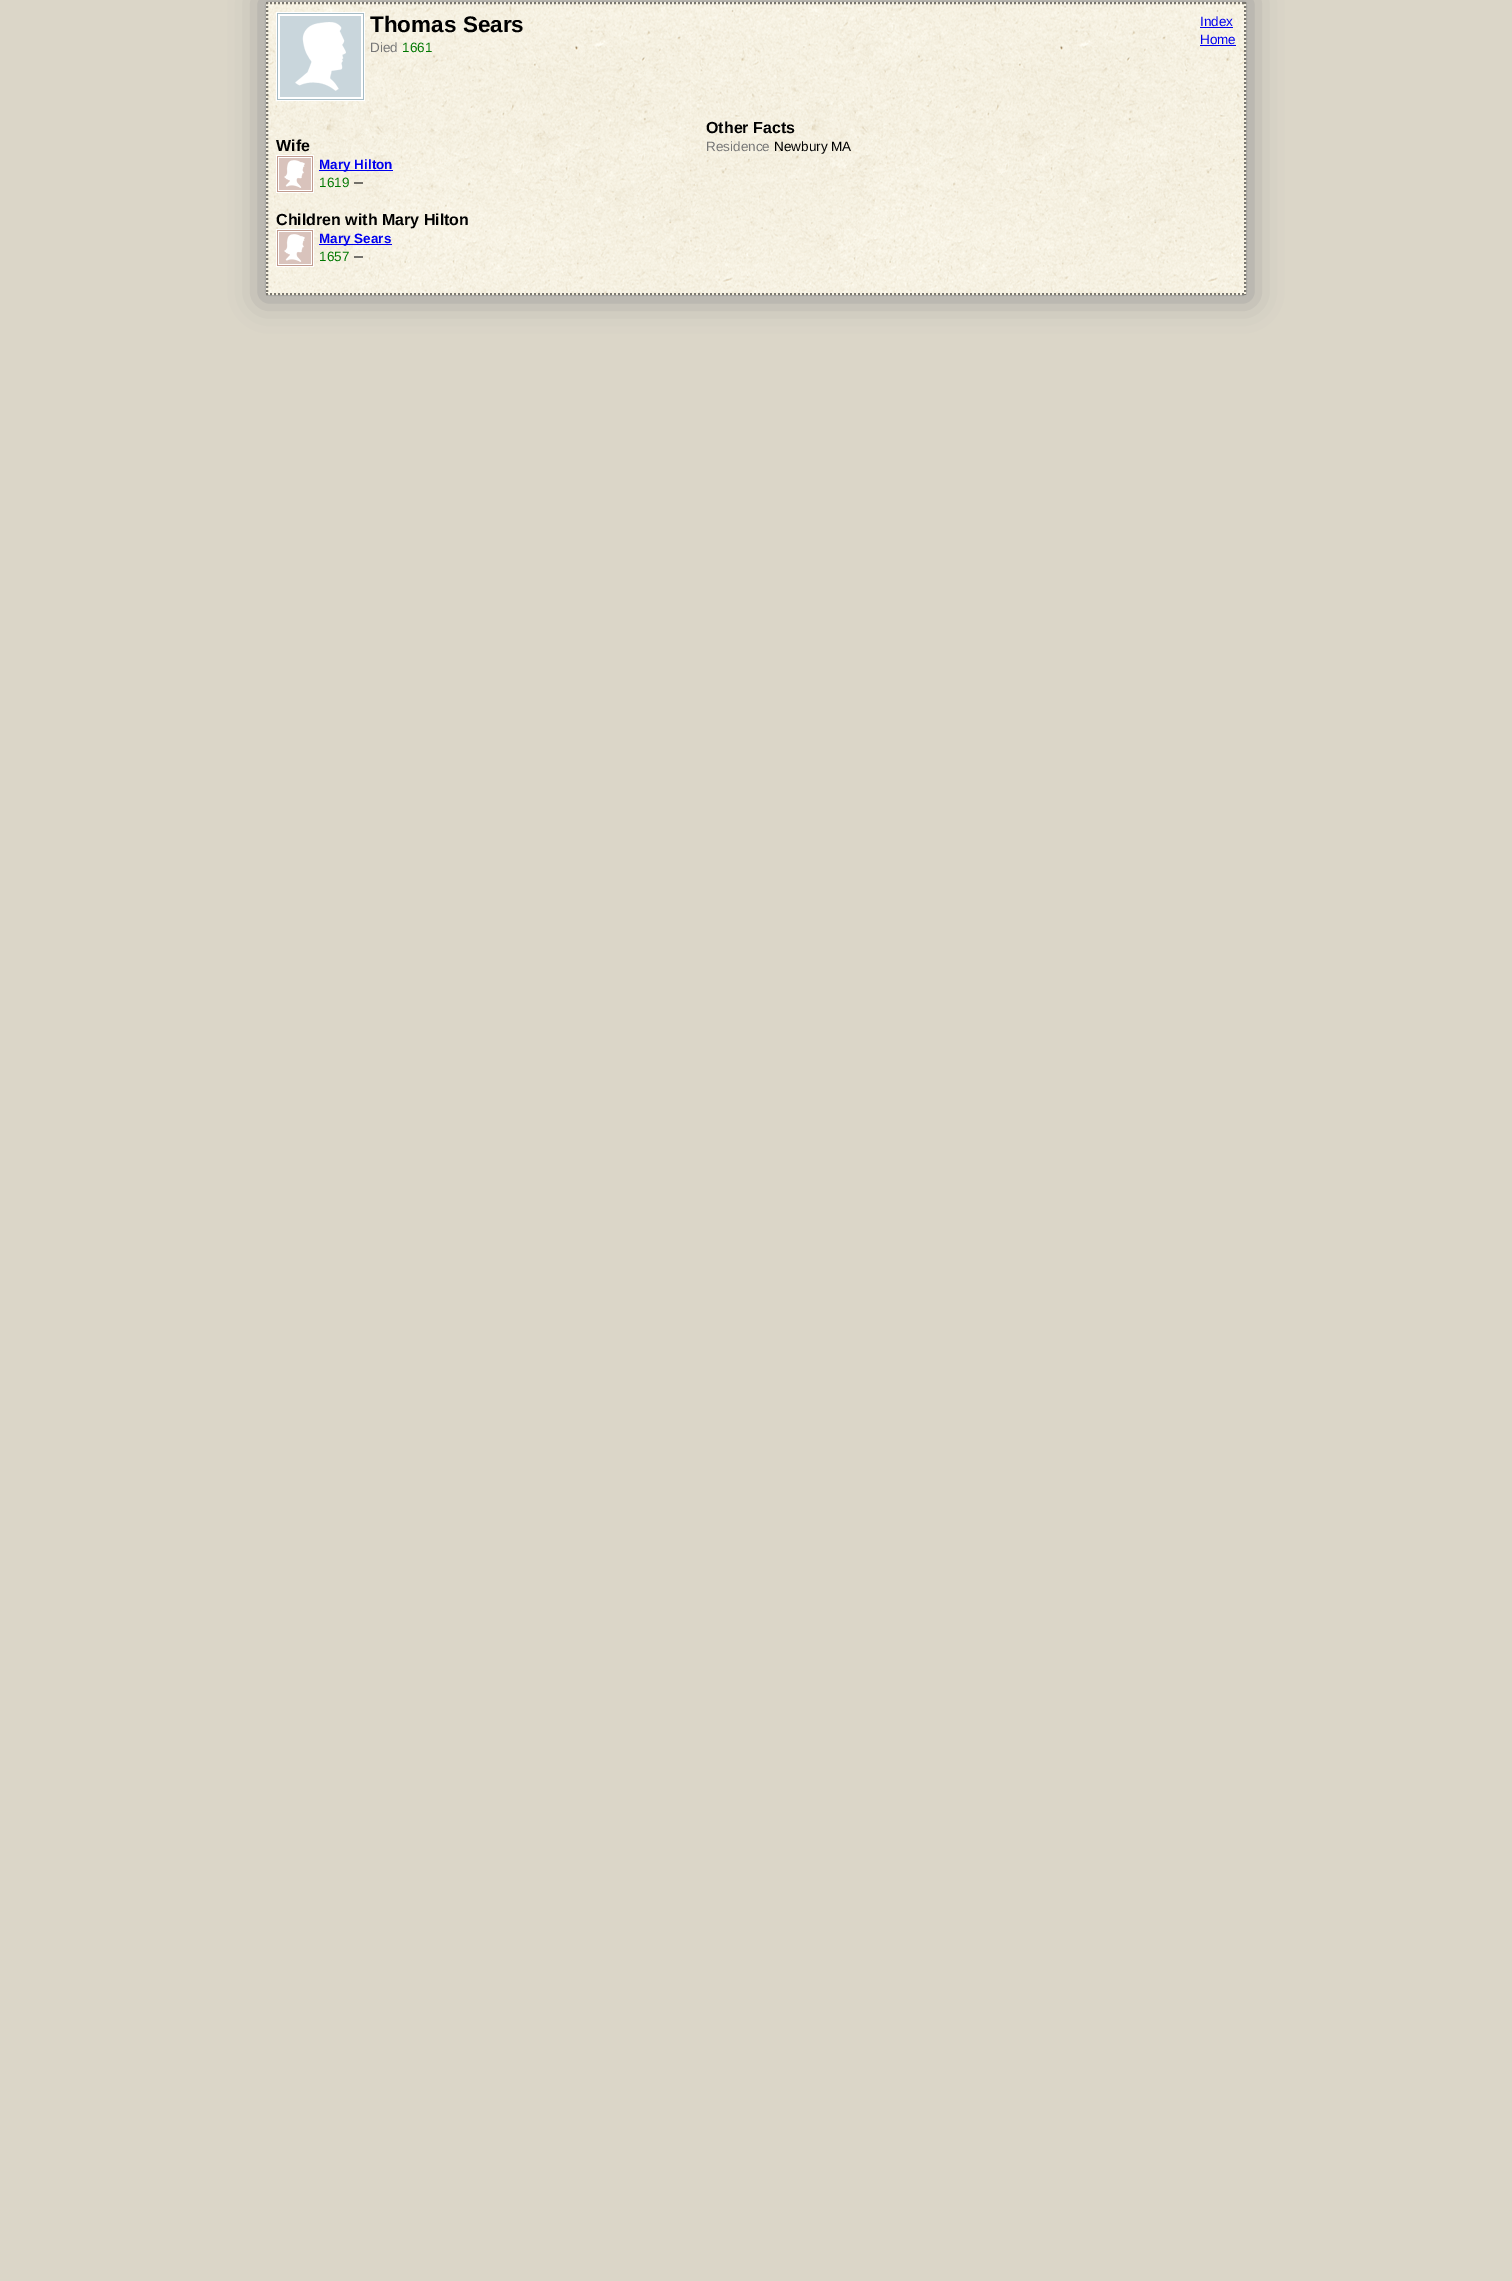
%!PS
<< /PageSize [1512 2281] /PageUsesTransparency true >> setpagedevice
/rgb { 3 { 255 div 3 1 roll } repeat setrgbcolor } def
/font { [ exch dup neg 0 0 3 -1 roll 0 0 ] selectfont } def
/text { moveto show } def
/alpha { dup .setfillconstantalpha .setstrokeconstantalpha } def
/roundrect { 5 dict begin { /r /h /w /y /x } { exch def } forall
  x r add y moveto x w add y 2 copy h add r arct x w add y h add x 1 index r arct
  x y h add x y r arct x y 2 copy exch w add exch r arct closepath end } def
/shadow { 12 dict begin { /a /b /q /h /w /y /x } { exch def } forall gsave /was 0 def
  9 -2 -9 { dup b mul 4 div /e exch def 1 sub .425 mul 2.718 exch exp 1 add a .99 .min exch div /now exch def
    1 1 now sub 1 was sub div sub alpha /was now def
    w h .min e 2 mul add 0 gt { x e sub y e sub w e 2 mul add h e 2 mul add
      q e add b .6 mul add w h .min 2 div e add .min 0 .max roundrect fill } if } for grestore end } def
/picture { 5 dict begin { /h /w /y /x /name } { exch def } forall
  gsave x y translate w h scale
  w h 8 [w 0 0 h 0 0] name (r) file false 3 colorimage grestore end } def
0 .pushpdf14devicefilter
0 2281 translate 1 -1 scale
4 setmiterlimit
219 214 200 rgb
0 0 1512 2281 rectfill
153 153 153 rgb
261 -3 990 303 0 15 1 shadow
(img_01.rgb) 266 2 980 293 picture
122 119 111 rgb
2 setlinewidth
[2 2] 0 setdash
266 3 moveto 980 0 rlineto stroke
1245 2 moveto 0 293 rlineto stroke
266 294 moveto 980 0 rlineto stroke
267 2 moveto 0 293 rlineto stroke
(img_02.rgb) 276 12 89 89 picture
0 0 238 rgb
1200 27 33 1 rectfill
1200 45 36 1 rectfill
(img_03.rgb) 276 155 38 38 picture
319 170 74 1 rectfill
(img_03.rgb) 276 229 38 38 picture
319 244 73 1 rectfill
/LiberationSans-Bold 22.5 font
0 0 0 rgb
(Thomas Sears) 370 32 text
/LiberationSans-Regular 13.5 font
119 119 119 rgb
(Died) 370 52 text
0 119 0 rgb
(1661) 402 52 text
0 0 238 rgb
(Index) 1200 26 text
(Home) 1200 44 text
/LiberationSans-Bold 16 font
0 0 0 rgb
(Wife) 276 151 text
/LiberationSans-Bold 13.5 font
0 0 238 rgb
(Mary Hilton) 319 169 text
/LiberationSans-Regular 13.5 font
0 119 0 rgb
(1619) 319 187 text
/LiberationSans-Regular 16 font
0 0 0 rgb
(–) 354 187 text
/LiberationSans-Bold 16 font
(Children with Mary Hilton) 276 225 text
/LiberationSans-Bold 13.5 font
0 0 238 rgb
(Mary Sears) 319 243 text
/LiberationSans-Regular 13.5 font
0 119 0 rgb
(1657) 319 261 text
/LiberationSans-Regular 16 font
0 0 0 rgb
(–) 354 261 text
/LiberationSans-Bold 16 font
(Other Facts) 706 133 text
/LiberationSans-Regular 13.5 font
119 119 119 rgb
(Residence) 706 151 text
0 0 0 rgb
(Newbury MA) 774 151 text
.poppdf14devicefilter showpage
